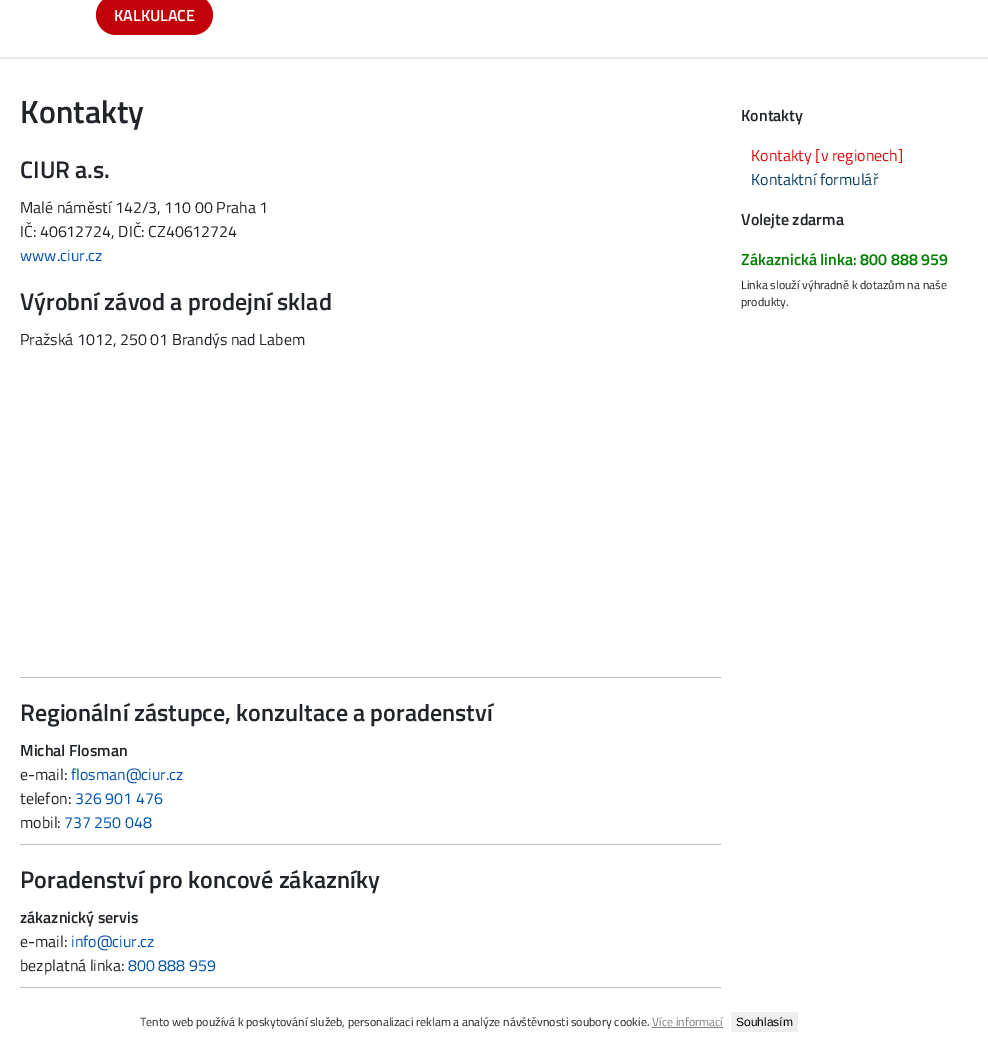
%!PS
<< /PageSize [988 1037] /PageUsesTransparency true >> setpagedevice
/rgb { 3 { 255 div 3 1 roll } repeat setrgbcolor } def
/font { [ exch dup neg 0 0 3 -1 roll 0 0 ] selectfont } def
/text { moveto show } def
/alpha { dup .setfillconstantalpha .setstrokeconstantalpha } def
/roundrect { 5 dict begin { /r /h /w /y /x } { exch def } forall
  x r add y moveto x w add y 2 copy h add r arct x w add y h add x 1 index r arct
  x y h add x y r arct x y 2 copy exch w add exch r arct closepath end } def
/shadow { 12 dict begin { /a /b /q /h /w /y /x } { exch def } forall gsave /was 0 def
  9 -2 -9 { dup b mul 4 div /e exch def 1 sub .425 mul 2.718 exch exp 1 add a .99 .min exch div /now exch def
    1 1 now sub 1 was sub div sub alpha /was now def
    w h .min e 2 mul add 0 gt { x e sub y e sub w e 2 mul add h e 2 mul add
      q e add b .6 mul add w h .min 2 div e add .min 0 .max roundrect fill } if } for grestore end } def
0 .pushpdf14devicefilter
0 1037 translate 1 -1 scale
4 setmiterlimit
255 255 255 rgb
0 0 988 1037 rectfill
gsave
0 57 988 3 rectclip
0 0 0 rgb
0 -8 988 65 0 2.5 0.2 shadow
grestore
193 0 8 rgb
96 -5 117 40 20 roundrect fill
190 190 190 rgb
20 677 701 1 rectfill
20 844 701 1 rectfill
20 987 701 1 rectfill
128 128 128 rgb
652 1027 71 1 rectfill
239 239 239 rgb
731 1012 67 20 rectfill
/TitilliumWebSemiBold-SemiBold 16 font
255 255 255 rgb
(KALKULACE) 114 21 text
/TitilliumWebSemiBold-SemiBold 32 font
33 37 41 rgb
(Kontakty) 20 123 text
/TitilliumWebSemiBold-SemiBold 24 font
(CIUR a.s.) 20 178 text
/TitilliumWeb-Regular 16 font
(Malé náměstí 142/3, 110 00 Praha 1) 20 213 text
(IČ: 40612724, DIČ: CZ40612724) 20 237 text
0 82 175 rgb
(www.ciur.cz) 20 261 text
/TitilliumWebSemiBold-SemiBold 24 font
33 37 41 rgb
(Výrobní závod a prodejní sklad) 20 310 text
/TitilliumWeb-Regular 16 font
(Pražská 1012, 250 01 Brandýs nad Labem) 20 345 text
/TitilliumWebSemiBold-SemiBold 24 font
(Regionální zástupce, konzultace a poradenství) 20 721 text
/TitilliumWebSemiBold-SemiBold 16 font
(Michal Flosman) 20 756 text
/TitilliumWeb-Regular 16 font
(e-mail:) 20 780 text
0 82 175 rgb
(flosman@ciur.cz) 71 780 text
33 37 41 rgb
(telefon:) 20 804 text
0 82 175 rgb
(326 901 476) 75 804 text
33 37 41 rgb
(mobil:) 20 828 text
0 82 175 rgb
(737 250 048) 64 828 text
/TitilliumWebSemiBold-SemiBold 24 font
33 37 41 rgb
(Poradenství pro koncové zákazníky) 20 888 text
/TitilliumWebSemiBold-SemiBold 16 font
(zákaznický servis) 20 923 text
/TitilliumWeb-Regular 16 font
(e-mail:) 20 947 text
0 82 175 rgb
(info@ciur.cz) 71 947 text
33 37 41 rgb
(bezplatná linka:) 20 971 text
0 82 175 rgb
(800 888 959) 128 971 text
/TitilliumWebSemiBold-SemiBold 16 font
33 37 41 rgb
(Kontakty) 741 121 text
/TitilliumWeb-Regular 16 font
218 13 13 rgb
(Kontakty [v regionech]) 751 161 text
10 63 100 rgb
(Kontaktní formulář) 751 185 text
/TitilliumWebSemiBold-SemiBold 16 font
33 37 41 rgb
(Volejte zdarma) 741 225 text
0 128 0 rgb
(Zákaznická linka: 800 888 959) 741 265 text
/TitilliumWeb-Regular 12 font
33 37 41 rgb
(Linka slouží výhradně k dotazům na naše) 741 289 text
(produkty.) 741 306 text
(Tento web používá k poskytování služeb, personalizaci reklam a analýze návštěvnosti soubory cookie.) 140 1026 text
128 128 128 rgb
(Více informací) 652 1026 text
/LiberationSans-Regular 12 font
0 0 0 rgb
(Souhlasím) 736 1026 text
.poppdf14devicefilter showpage
